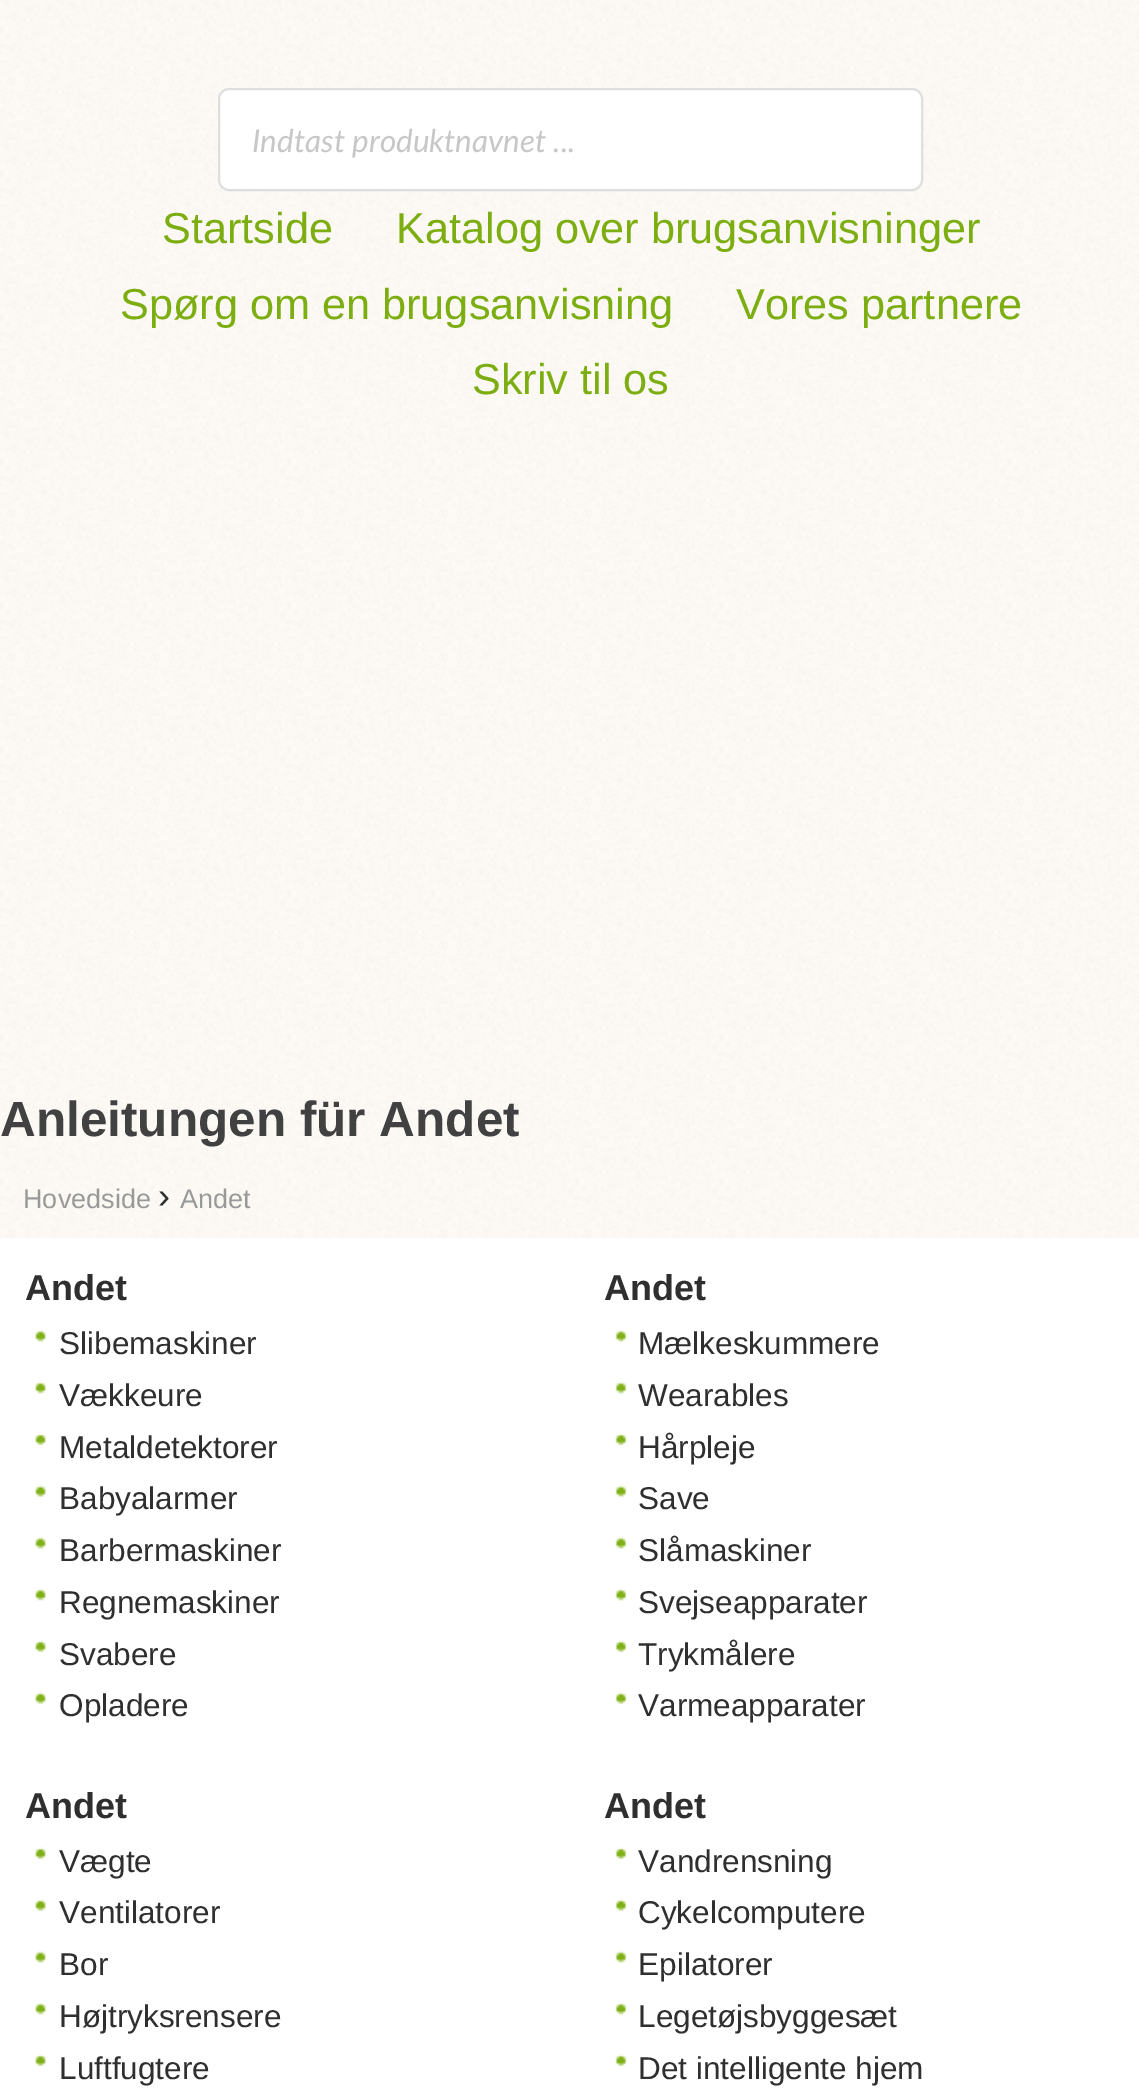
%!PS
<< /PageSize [1139 2090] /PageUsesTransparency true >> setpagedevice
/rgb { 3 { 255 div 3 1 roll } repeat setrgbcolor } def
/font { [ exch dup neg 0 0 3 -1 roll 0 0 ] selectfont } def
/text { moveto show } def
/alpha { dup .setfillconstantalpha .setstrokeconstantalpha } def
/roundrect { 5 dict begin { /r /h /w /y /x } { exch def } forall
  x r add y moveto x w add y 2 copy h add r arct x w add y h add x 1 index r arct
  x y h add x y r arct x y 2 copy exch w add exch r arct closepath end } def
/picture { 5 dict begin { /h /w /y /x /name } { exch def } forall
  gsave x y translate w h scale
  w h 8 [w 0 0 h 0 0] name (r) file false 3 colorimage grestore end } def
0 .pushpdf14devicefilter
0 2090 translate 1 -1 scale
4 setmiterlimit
255 255 255 rgb
0 0 1139 2090 rectfill
(img_01.rgb) 0 0 1139 1238 picture
218 88 705 103 11 roundrect fill
0.15 alpha
34 36 38 rgb
2 setlinewidth
219 89 703 101 10 roundrect stroke
1 alpha
(img_02.rgb) 35 1329 11 13 picture
(img_03.rgb) 35 1381 11 13 picture
(img_04.rgb) 35 1433 11 13 picture
(img_05.rgb) 35 1484 11 13 picture
(img_02.rgb) 35 1536 11 13 picture
(img_03.rgb) 35 1588 11 13 picture
(img_04.rgb) 35 1640 11 13 picture
(img_05.rgb) 35 1691 11 13 picture
(img_06.rgb) 615 1329 12 13 picture
(img_07.rgb) 615 1381 12 13 picture
(img_08.rgb) 615 1433 12 13 picture
(img_09.rgb) 615 1484 12 13 picture
(img_06.rgb) 615 1536 12 13 picture
(img_07.rgb) 615 1588 12 13 picture
(img_08.rgb) 615 1640 12 13 picture
(img_09.rgb) 615 1691 12 13 picture
(img_04.rgb) 35 1847 11 13 picture
(img_05.rgb) 35 1898 11 13 picture
(img_02.rgb) 35 1950 11 13 picture
(img_03.rgb) 35 2002 11 13 picture
(img_04.rgb) 35 2054 11 13 picture
(img_08.rgb) 615 1847 12 13 picture
(img_09.rgb) 615 1898 12 13 picture
(img_06.rgb) 615 1950 12 13 picture
(img_07.rgb) 615 2002 12 13 picture
(img_08.rgb) 615 2054 12 13 picture
/Lato-Italic 31.5 font
199 199 199 rgb
(Indtast produktnavnet ...) 252 152 text
/LiberationSans-Regular 43.25 font
124 174 17 rgb
(Startside) 162 243 text
(Katalog over brugsanvisninger) 396 243 text
(Spørg om en brugsanvisning) 120 319 text
(Vores partnere) 736 319 text
(Skriv til os) 472 394 text
/LiberationSans-Bold 49.5 font
65 65 65 rgb
(Anleitungen für Andet) 0 1136 text
/LiberationSans-Regular 27 font
153 153 153 rgb
(Hovedside) 23 1208 text
/LiberationSans-Regular 36 font
47 47 47 rgb
(›) 158 1208 text
/LiberationSans-Regular 27 font
153 153 153 rgb
(Andet) 180 1208 text
/LiberationSans-Bold 36 font
47 47 47 rgb
(Andet) 25 1300 text
/LiberationSans-Regular 31.5 font
(Slibemaskiner) 59 1354 text
(Vækkeure) 59 1406 text
(Metaldetektorer) 59 1458 text
(Babyalarmer) 59 1509 text
(Barbermaskiner) 59 1561 text
(Regnemaskiner) 59 1613 text
(Svabere) 59 1665 text
(Opladere) 59 1716 text
/LiberationSans-Bold 36 font
(Andet) 604 1300 text
/LiberationSans-Regular 31.5 font
(Mælkeskummere) 638 1354 text
(Wearables) 638 1406 text
(Hårpleje) 638 1458 text
(Save) 638 1509 text
(Slåmaskiner) 638 1561 text
(Svejseapparater) 638 1613 text
(Trykmålere) 638 1665 text
(Varmeapparater) 638 1716 text
/LiberationSans-Bold 36 font
(Andet) 25 1818 text
/LiberationSans-Regular 31.5 font
(Vægte) 59 1872 text
(Ventilatorer) 59 1923 text
(Bor) 59 1975 text
(Højtryksrensere) 59 2027 text
(Luftfugtere) 59 2079 text
/LiberationSans-Bold 36 font
(Andet) 604 1818 text
/LiberationSans-Regular 31.5 font
(Vandrensning) 638 1872 text
(Cykelcomputere) 638 1923 text
(Epilatorer) 638 1975 text
(Legetøjsbyggesæt) 638 2027 text
(Det intelligente hjem) 638 2079 text
.poppdf14devicefilter showpage
